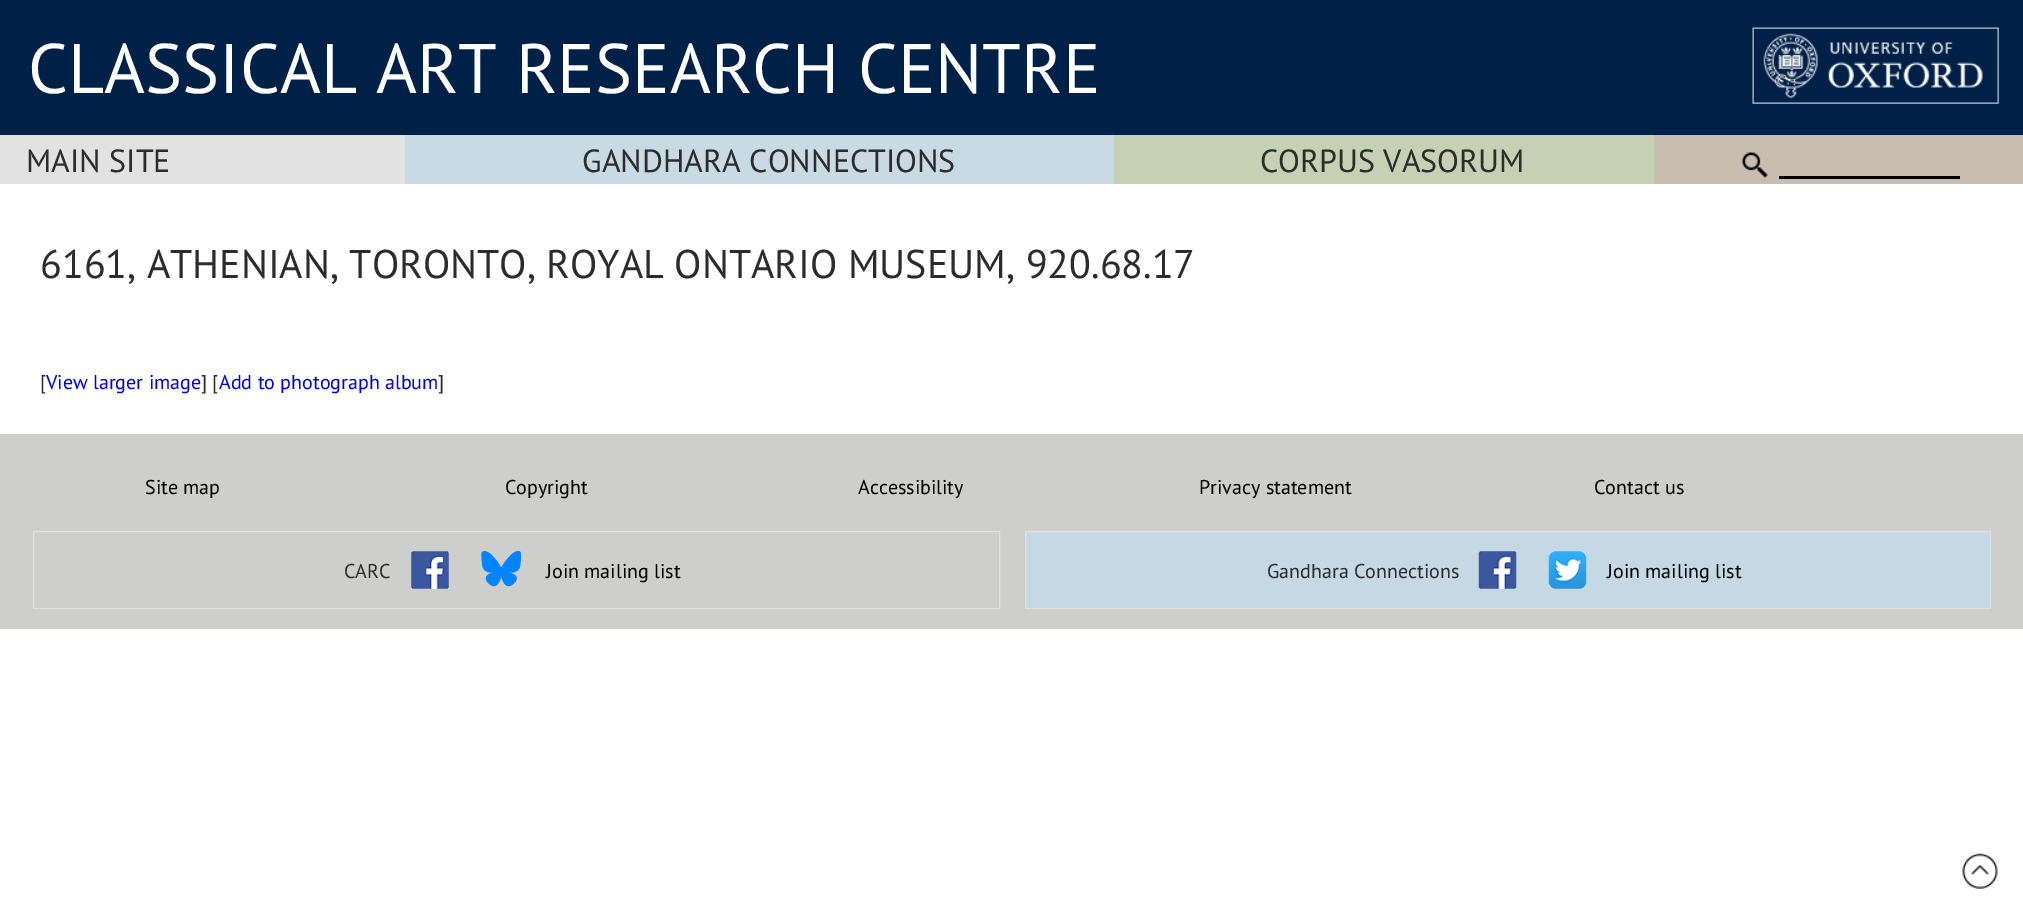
%!PS
<< /PageSize [2023 920] >> setpagedevice
/rgb { 3 { 255 div 3 1 roll } repeat setrgbcolor } def
/font { [ exch dup neg 0 0 3 -1 roll 0 0 ] selectfont } def
/text { moveto show } def
/picture { 5 dict begin { /h /w /y /x /name } { exch def } forall
  gsave x y translate w h scale
  w h 8 [w 0 0 h 0 0] name (r) file false 3 colorimage grestore end } def
0 920 translate 1 -1 scale
4 setmiterlimit
255 255 255 rgb
0 0 2023 920 rectfill
0 33 71 rgb
0 0 2023 135 rectfill
(img_01.rgb) 1752 27 247 77 picture
226 226 226 rgb
0 135 405 49 rectfill
200 219 229 rgb
405 135 709 49 rectfill
197 209 178 rgb
1114 135 540 49 rectfill
200 189 174 rgb
1654 135 369 49 rectfill
(img_02.rgb) 1742 152 26 26 picture
0 0 0 rgb
1779 176 181 3 rectfill
206 206 204 rgb
0 434 2023 195 rectfill
224 224 224 rgb
33.5 531.5 966 77 rectstroke
(img_03.rgb) 411 551 38 38 picture
(img_04.rgb) 481 550 40 37 picture
197 217 228 rgb
1025.5 531.5 moveto 965 0 rlineto 0 77 rlineto -965 0 rlineto closepath gsave fill grestore
224 224 224 rgb
stroke
(img_05.rgb) 1478 551 39 38 picture
(img_06.rgb) 1548 551 39 38 picture
(img_07.rgb) 1962 853 36 36 picture
/PTSans-Regular 70 font
255 255 255 rgb
(CLASSICAL ART RESEARCH CENTRE) 28 93 text
/PTSans-Regular 32 font
44 44 44 rgb
(MAIN SITE) 26 172 text
(GANDHARA CONNECTIONS) 582 172 text
(CORPUS VASORUM) 1260 172 text
/PTSans-Regular 40 font
(6161, ATHENIAN, TORONTO, ROYAL ONTARIO MUSEUM, 920.68.17) 40 278 text
/PTSans-Regular 20 font
([) 40 389 text
0 0 238 rgb
(View larger image) 46 389 text
44 44 44 rgb
(] [) 201 389 text
0 0 238 rgb
(Add to photograph album) 219 389 text
44 44 44 rgb
(]) 438 389 text
0 0 0 rgb
(Site map) 145 494 text
(Copyright) 505 494 text
(Accessibility) 858 494 text
(Privacy statement) 1199 494 text
(Contact us) 1594 494 text
44 44 44 rgb
(CARC) 344 578 text
0 0 0 rgb
(Join mailing list) 546 578 text
44 44 44 rgb
(Gandhara Connections) 1267 578 text
0 0 0 rgb
(Join mailing list) 1607 578 text
showpage
